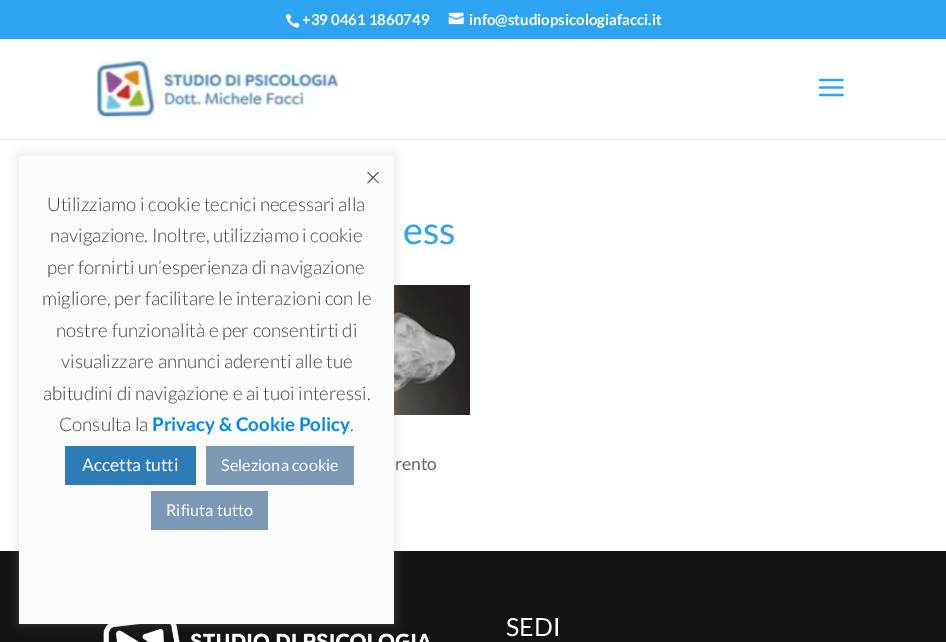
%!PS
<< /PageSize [946 642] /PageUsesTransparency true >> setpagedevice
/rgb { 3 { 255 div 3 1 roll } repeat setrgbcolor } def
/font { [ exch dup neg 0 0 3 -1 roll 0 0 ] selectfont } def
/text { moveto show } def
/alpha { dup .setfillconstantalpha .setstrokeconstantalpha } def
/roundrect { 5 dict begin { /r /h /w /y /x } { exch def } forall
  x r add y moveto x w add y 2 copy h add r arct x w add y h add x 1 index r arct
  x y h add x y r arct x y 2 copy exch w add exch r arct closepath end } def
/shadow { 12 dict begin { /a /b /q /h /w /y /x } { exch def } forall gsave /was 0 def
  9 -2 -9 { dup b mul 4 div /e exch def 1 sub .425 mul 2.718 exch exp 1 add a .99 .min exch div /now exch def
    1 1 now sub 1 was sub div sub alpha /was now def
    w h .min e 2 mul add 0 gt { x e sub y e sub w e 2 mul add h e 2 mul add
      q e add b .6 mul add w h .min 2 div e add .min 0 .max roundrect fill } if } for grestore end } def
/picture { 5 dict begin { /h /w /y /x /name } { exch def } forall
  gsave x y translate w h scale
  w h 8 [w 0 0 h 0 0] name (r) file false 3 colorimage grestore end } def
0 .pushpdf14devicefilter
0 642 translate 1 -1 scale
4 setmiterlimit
255 255 255 rgb
0 0 946 642 rectfill
(img_05.rgb) 394 285 76 130 picture
19 19 19 rgb
0 551 946 91 rectfill
(img_06.rgb) 103 624 326 18 picture
172 171 171 rgb
19 155 375 468 0 6 0.3 shadow
252 252 252 rgb
19 156 375 468 rectfill
45 124 181 rgb
65 446 131 39 rectfill
124 152 181 rgb
206 446 148 39 rectfill
151 491 117 39 rectfill
46 163 242 rgb
0 0 946 39 rectfill
(img_01.rgb) 285 14 15 14 picture
(img_02.rgb) 448 12 16 13 picture
229 229 229 rgb
0 139 946 1 rectfill
(img_03.rgb) 97 61 241 56 picture
(img_04.rgb) 818 78 26 19 picture
/Lato-Light 28 font
51 51 51 rgb
(×) 365 187 text
/Lato-Light 18.75 font
66 66 66 rgb
(Utilizziamo i cookie tecnici necessari alla) 47 211 text
(navigazione. Inoltre, utilizziamo i cookie) 50 242 text
(per fornirti un’esperienza di navigazione) 47 274 text
(migliore, per facilitare le interazioni con le) 42 305 text
(nostre funzionalità e per consentirti di) 56 337 text
(visualizzare annunci aderenti alle tue) 61 368 text
(abitudini di navigazione e ai tuoi interessi.) 43 400 text
(Consulta la) 59 431 text
/Lato-Bold 18.75 font
0 137 242 rgb
(Privacy & Cookie Policy) 152 431 text
/Lato-Light 18.75 font
66 66 66 rgb
(.) 350 431 text
/Lato-Regular 17.5 font
255 255 255 rgb
(Accetta tutti) 82 471 text
/Lato-Regular 16.25 font
(Seleziona cookie) 221 471 text
(Rifiuta tutto) 166 516 text
/Lato-Bold 15 font
(+39 0461 1860749) 302 25 text
(info@studiopsicologiafacci.it) 469 25 text
/Lato-Regular 38 font
46 163 242 rgb
(ess) 403 244 text
/Lato-Regular 17.5 font
102 102 102 rgb
(rento) 395 470 text
/Lato-Regular 25 font
255 255 255 rgb
(SEDI) 506 636 text
.poppdf14devicefilter showpage
